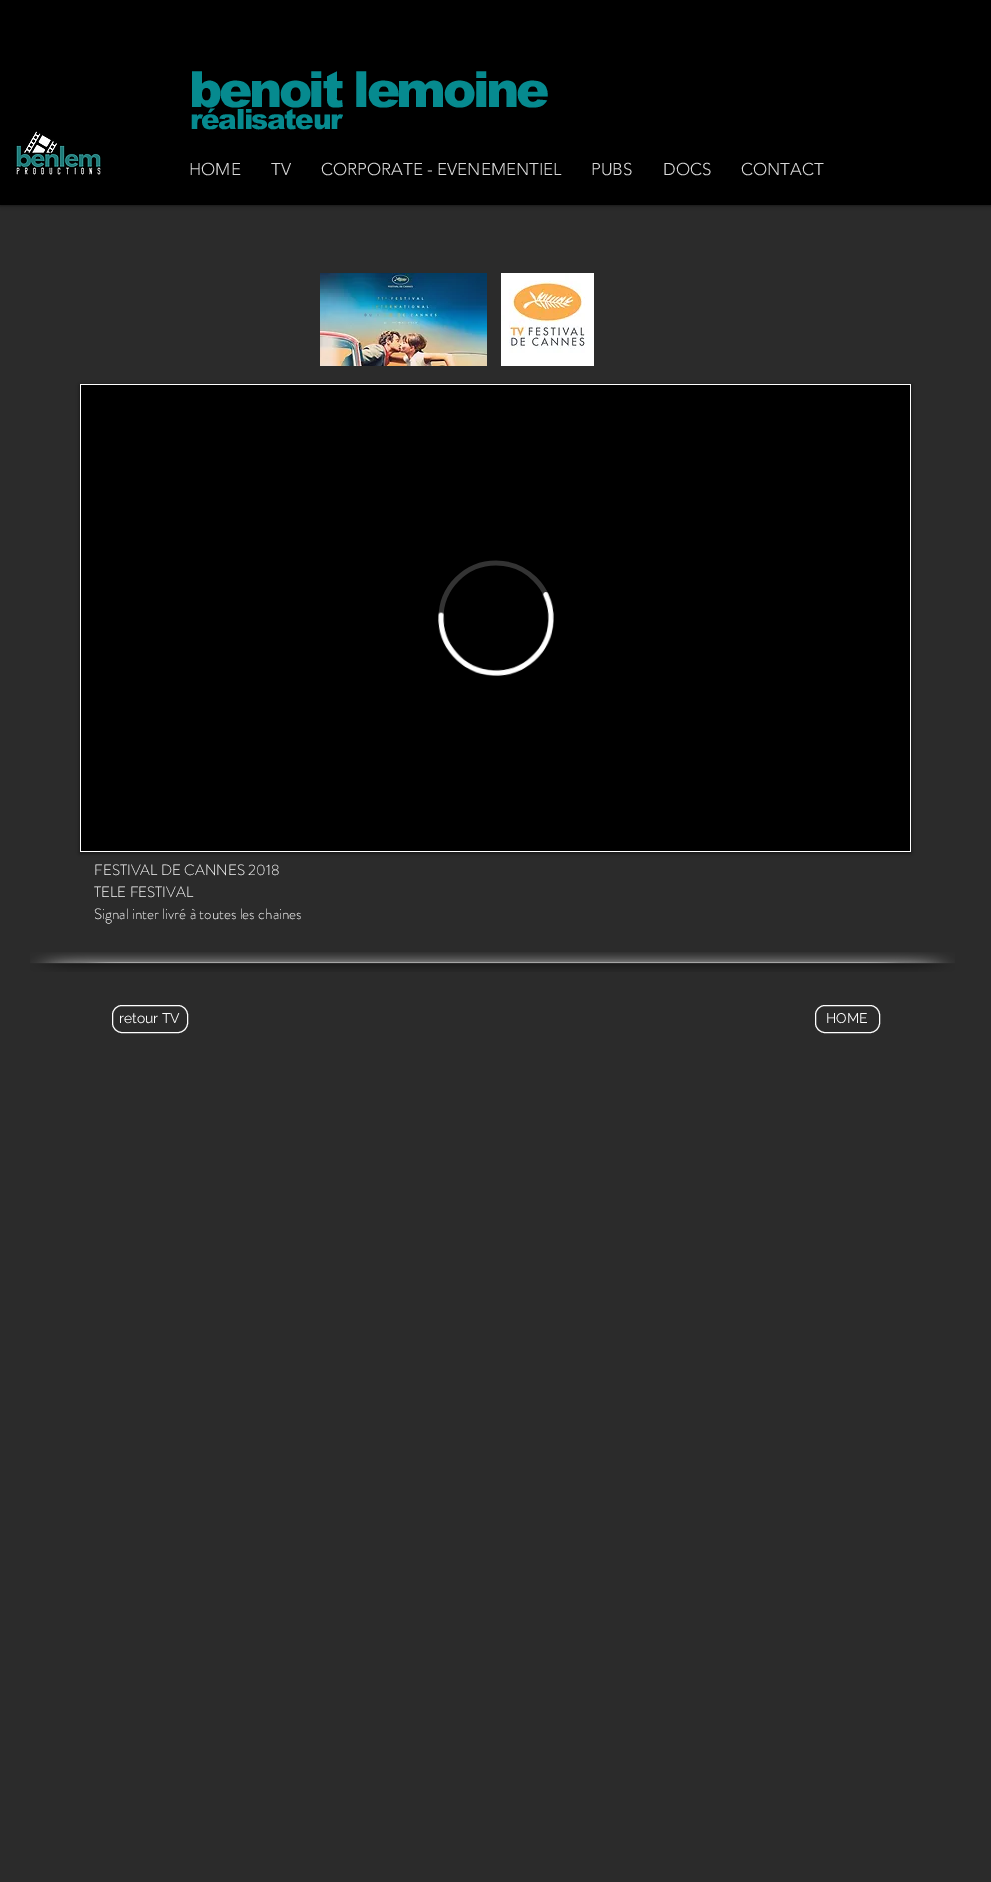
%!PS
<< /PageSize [991 1882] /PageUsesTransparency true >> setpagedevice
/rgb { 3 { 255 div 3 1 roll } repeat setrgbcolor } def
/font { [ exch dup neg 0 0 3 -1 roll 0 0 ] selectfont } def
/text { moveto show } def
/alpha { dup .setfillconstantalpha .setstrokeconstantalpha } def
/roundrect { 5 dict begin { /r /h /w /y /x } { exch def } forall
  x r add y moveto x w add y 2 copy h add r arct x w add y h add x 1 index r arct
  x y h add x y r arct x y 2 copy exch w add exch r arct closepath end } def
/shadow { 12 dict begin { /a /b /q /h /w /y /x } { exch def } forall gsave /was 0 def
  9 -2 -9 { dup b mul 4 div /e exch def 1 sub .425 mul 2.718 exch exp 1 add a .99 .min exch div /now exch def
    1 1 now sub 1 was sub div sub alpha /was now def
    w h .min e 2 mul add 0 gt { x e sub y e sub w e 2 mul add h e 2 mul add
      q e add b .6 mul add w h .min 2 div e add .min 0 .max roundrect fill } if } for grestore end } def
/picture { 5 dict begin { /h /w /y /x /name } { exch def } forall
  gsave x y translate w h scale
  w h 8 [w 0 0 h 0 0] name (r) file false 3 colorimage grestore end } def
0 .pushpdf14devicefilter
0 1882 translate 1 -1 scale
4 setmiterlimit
43 43 43 rgb
0 0 991 1882 rectfill
0 0 0 rgb
0 0 991 205 0 2.5 0.7 shadow
0 0 991 205 rectfill
(img_01.rgb) 16 131 85 44 picture
(img_02.rgb) 320 273 167 93 picture
(img_03.rgb) 501 273 93 93 picture
80 385 831 468 0 2 0.6 shadow
255 255 255 rgb
80 384 831 468 rectfill
(img_04.rgb) 81 385 829 466 picture
(img_05.rgb) 30 952 97 20 picture
(img_06.rgb) 127 952 731 20 picture
(img_07.rgb) 858 952 97 20 picture
112.5 1005.5 75 27 9.5 roundrect stroke
815.5 1005.5 64 27 9.5 roundrect stroke
/arial-Black 50 font
6 138 143 rgb
189 107 moveto -3.5 0 (benoit lemoine) ashow
/arial-Black 28 font
190 129 moveto -1.4 0 (réalisateur) ashow
/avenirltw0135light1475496-Light 17 font
218 218 218 rgb
(HOME) 189 175 text
(TV) 271 175 text
(CORPORATE - EVENEMENTIEL) 321 175 text
(PUBS) 591 175 text
(DOCS) 663 175 text
(CONTACT) 741 175 text
/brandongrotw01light-Light 15 font
255 255 255 rgb
(FESTIVAL DE CANNES 2018) 94 875 text
(TELE FESTIVAL) 94 897 text
(Signal inter livré à toutes les chaines) 94 919 text
/Raleway-Regular 14 font
(retour TV) 119 1023 text
(HOME) 826 1023 text
.poppdf14devicefilter showpage
